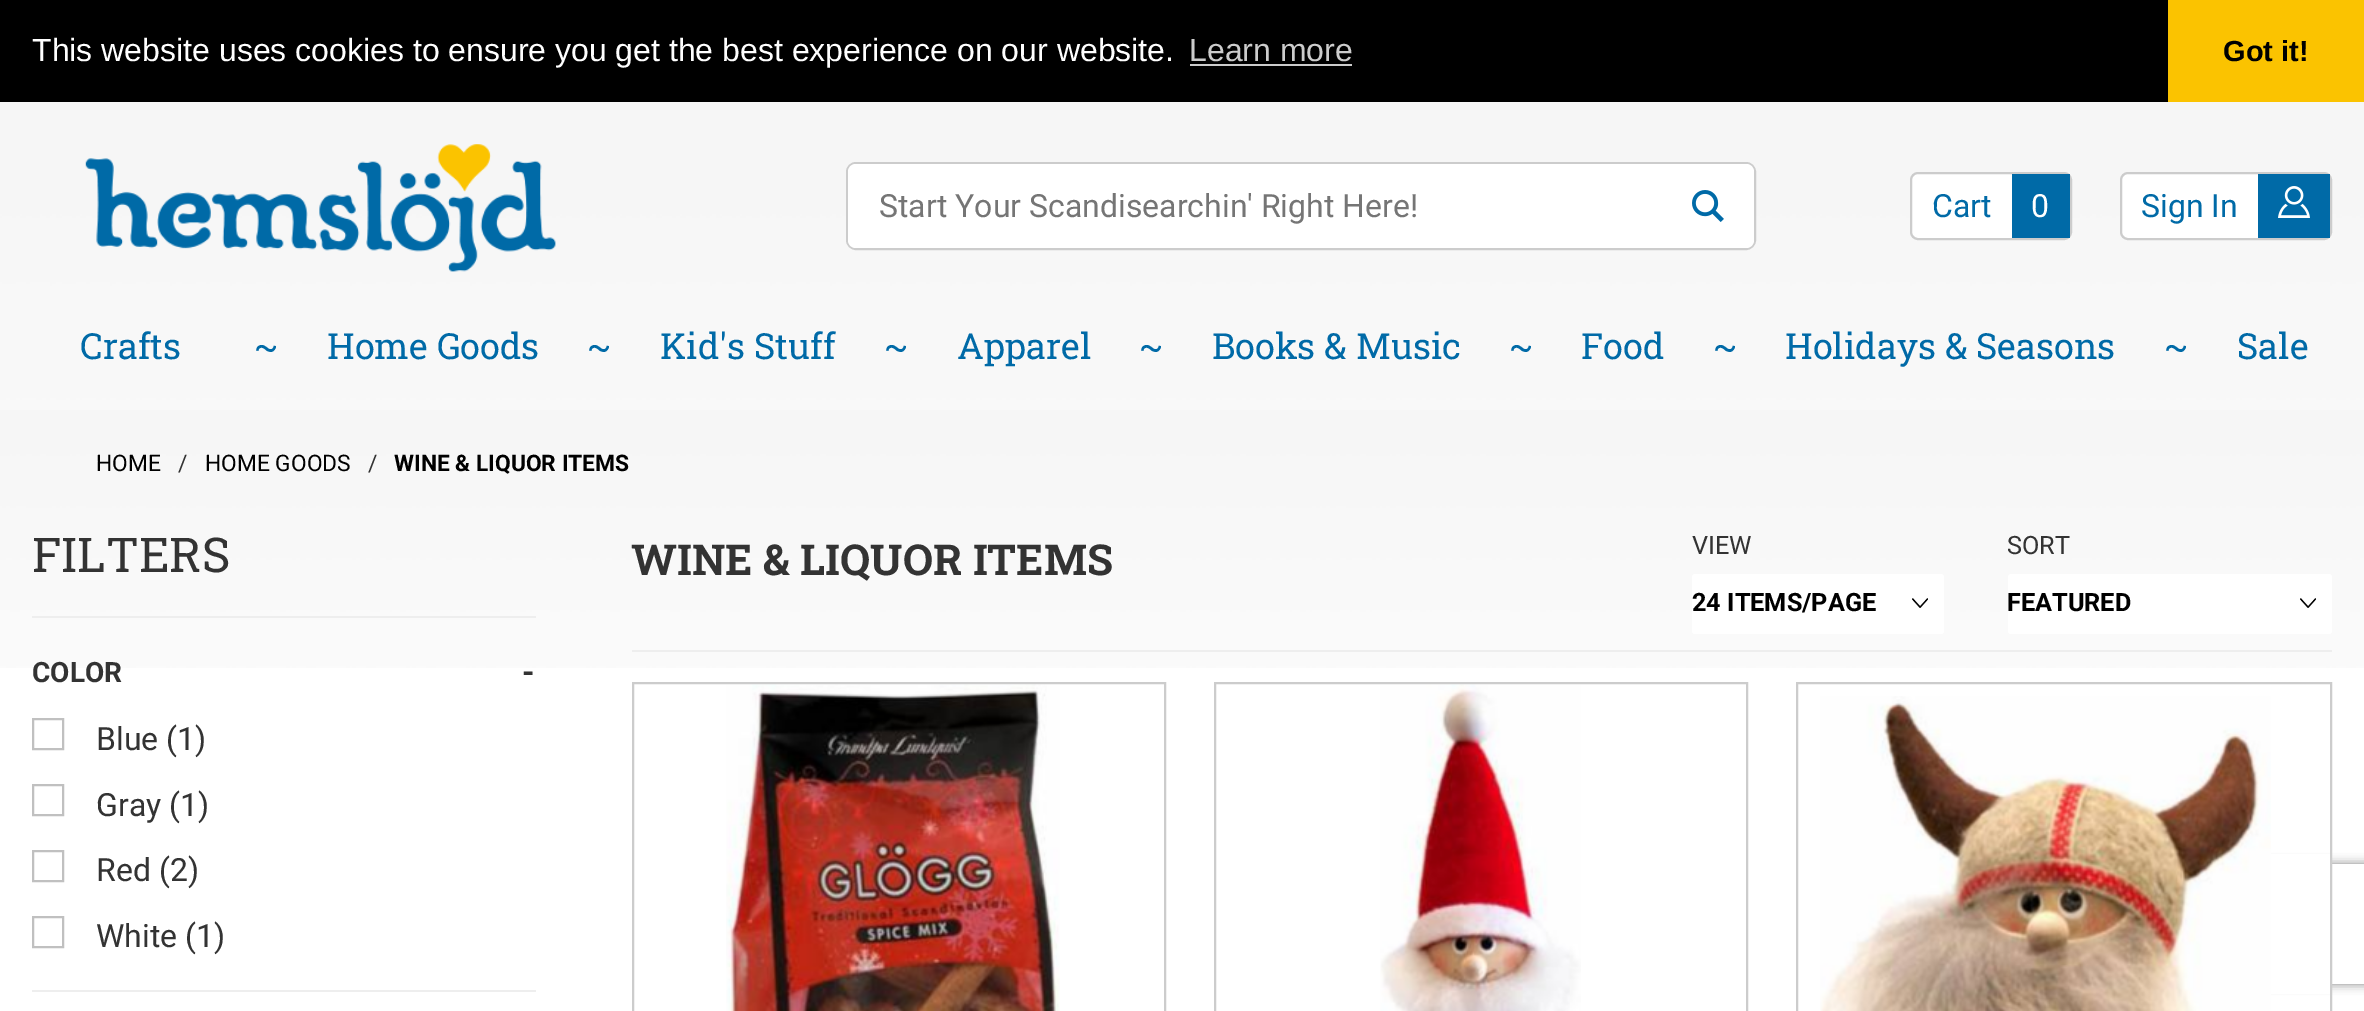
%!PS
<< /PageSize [2364 1011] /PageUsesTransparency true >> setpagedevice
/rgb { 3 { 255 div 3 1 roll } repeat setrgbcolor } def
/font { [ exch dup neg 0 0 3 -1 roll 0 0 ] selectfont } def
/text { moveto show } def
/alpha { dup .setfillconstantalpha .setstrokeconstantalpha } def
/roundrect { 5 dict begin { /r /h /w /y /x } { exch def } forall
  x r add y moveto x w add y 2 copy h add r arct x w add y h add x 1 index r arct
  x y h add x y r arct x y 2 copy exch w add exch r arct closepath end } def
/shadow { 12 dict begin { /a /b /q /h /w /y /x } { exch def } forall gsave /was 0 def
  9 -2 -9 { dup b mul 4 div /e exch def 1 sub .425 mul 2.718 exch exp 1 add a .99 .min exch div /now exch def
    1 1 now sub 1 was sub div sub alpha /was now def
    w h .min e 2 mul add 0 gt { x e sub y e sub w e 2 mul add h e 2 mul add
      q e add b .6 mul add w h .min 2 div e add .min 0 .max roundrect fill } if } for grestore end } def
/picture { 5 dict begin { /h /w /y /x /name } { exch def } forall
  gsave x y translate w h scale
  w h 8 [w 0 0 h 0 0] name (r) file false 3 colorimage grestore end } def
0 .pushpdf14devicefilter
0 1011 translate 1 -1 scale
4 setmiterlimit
255 255 255 rgb
0 0 2364 1011 rectfill
(img_01.rgb) 0 102 2364 566 picture
0 0 0 rgb
0 0 2168 102 rectfill
204 204 204 rgb
1190 64 162 2 rectfill
251 195 0 rgb
2168 0 196 102 rectfill
0.33 alpha
255 255 255 rgb
0 102 2364 308 rectfill
1 alpha
(img_02.rgb) 85 144 471 128 picture
204 204 204 rgb
2 setlinewidth
847 163 908 86 9 roundrect stroke
255 255 255 rgb
856 164 moveto 806 0 rlineto 0 84 rlineto -806 0 rlineto -4.5 0 -8 -3.5 -8 -8 rcurveto 0 -68 rlineto 0 -4.5 3.5 -8 8 -8 rcurveto closepath fill
1662 164 moveto 84 0 rlineto 4.5 0 8 3.5 8 8 rcurveto 0 68 rlineto 0 4.5 -3.5 8 -8 8 rcurveto -84 0 rlineto closepath fill
(img_03.rgb) 1692 190 32 32 picture
1911 173 160 66 7 roundrect gsave fill grestore
204 204 204 rgb
stroke
0 106 167 rgb
2012 174 58 64 rectfill
255 255 255 rgb
2121 173 210 66 7 roundrect gsave fill grestore
204 204 204 rgb
stroke
0 106 167 rgb
2258 174 72 64 rectfill
(img_04.rgb) 2278 186 32 32 picture
238 238 238 rgb
32 616 504 2 rectfill
192 192 192 rgb
33 719 30 30 rectstroke
33 785 30 30 rectstroke
33 851 30 30 rectstroke
33 917 30 30 rectstroke
238 238 238 rgb
32 990 504 2 rectfill
255 255 255 rgb
1692 574 252 60 3 roundrect fill
(img_05.rgb) 1912 598 16 10 picture
2008 574 324 60 3 roundrect fill
(img_05.rgb) 2300 598 16 10 picture
238 238 238 rgb
632 650 1700 2 rectfill
(img_06.rgb) 726 684 334 327 picture
204 204 204 rgb
633 683 532 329 rectstroke
(img_07.rgb) 1380 684 201 327 picture
1215 683 532 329 rectstroke
gsave
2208 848 moveto 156 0 rlineto 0 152 rlineto -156 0 rlineto closepath 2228 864 moveto 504 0 rlineto 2 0 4 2 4 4 rcurveto 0 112 rlineto 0 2 -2 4 -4 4 rcurveto -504 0 rlineto -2 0 -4 -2 -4 -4 rcurveto 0 -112 rlineto 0 -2 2 -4 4 -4 rcurveto closepath eoclip newpath
128 128 128 rgb
2224 864 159 120 4 5 1 shadow
grestore
255 255 255 rgb
2214 854 116 140 rectfill
(img_08.rgb) 1820 696 451 315 picture
204 204 204 rgb
1797 683 534 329 rectstroke
/LiberationSans-Regular 32 font
255 255 255 rgb
(This website uses cookies to ensure you get the best experience on our website.) 32 61 text
204 204 204 rgb
(Learn more) 1189 61 text
/LiberationSans-Bold 29 font
0 0 0 rgb
(Got it!) 2223 61 text
/Roboto-Regular 32 font
117 117 117 rgb
(Start Your Scandisearchin' Right Here!) 879 217 text
0 106 167 rgb
(Cart) 1932 217 text
255 255 255 rgb
(0) 2031 217 text
0 106 167 rgb
(Sign In) 2141 217 text
/RobotoSlab-Regular 36 font
(Crafts) 80 359 text
(~) 254 359 text
(Home Goods) 327 359 text
(~) 587 359 text
(Kid's Stuff) 660 359 text
(~) 884 359 text
(Apparel) 957 359 text
(~) 1139 359 text
(Books & Music) 1212 359 text
(~) 1509 359 text
(Food) 1581 359 text
(~) 1713 359 text
(Holidays & Seasons) 1785 359 text
(~) 2164 359 text
(Sale) 2237 359 text
/Roboto-Regular 22.8 font
0 0 0 rgb
(HOME) 96 471 text
51 51 51 rgb
(/) 178 471 text
0 0 0 rgb
(HOME GOODS) 205 471 text
51 51 51 rgb
(/) 368 471 text
/Roboto-Bold 22.8 font
0 0 0 rgb
(WINE & LIQUOR ITEMS) 394 471 text
/RobotoSlab-Regular 48 font
51 51 51 rgb
(FILTERS) 32 572 text
/Roboto-Bold 28 font
(COLOR) 32 682 text
/Roboto-Bold 32 font
(-) 522 683 text
/Roboto-Regular 32 font
(Blue \(1\)) 96 750 text
(Gray \(1\)) 96 816 text
(Red \(2\)) 96 881 text
(White \(1\)) 96 947 text
/RobotoSlab-Bold 42.7 font
(WINE & LIQUOR ITEMS) 631 575 text
/Roboto-Regular 25.25 font
(VIEW) 1692 554 text
/Roboto-Bold 25.25 font
0 0 0 rgb
(24 ITEMS/PAGE) 1692 611 text
/Roboto-Regular 25.25 font
51 51 51 rgb
(SORT) 2007 554 text
/Roboto-Bold 25.25 font
0 0 0 rgb
(FEATURED) 2007 611 text
.poppdf14devicefilter showpage
